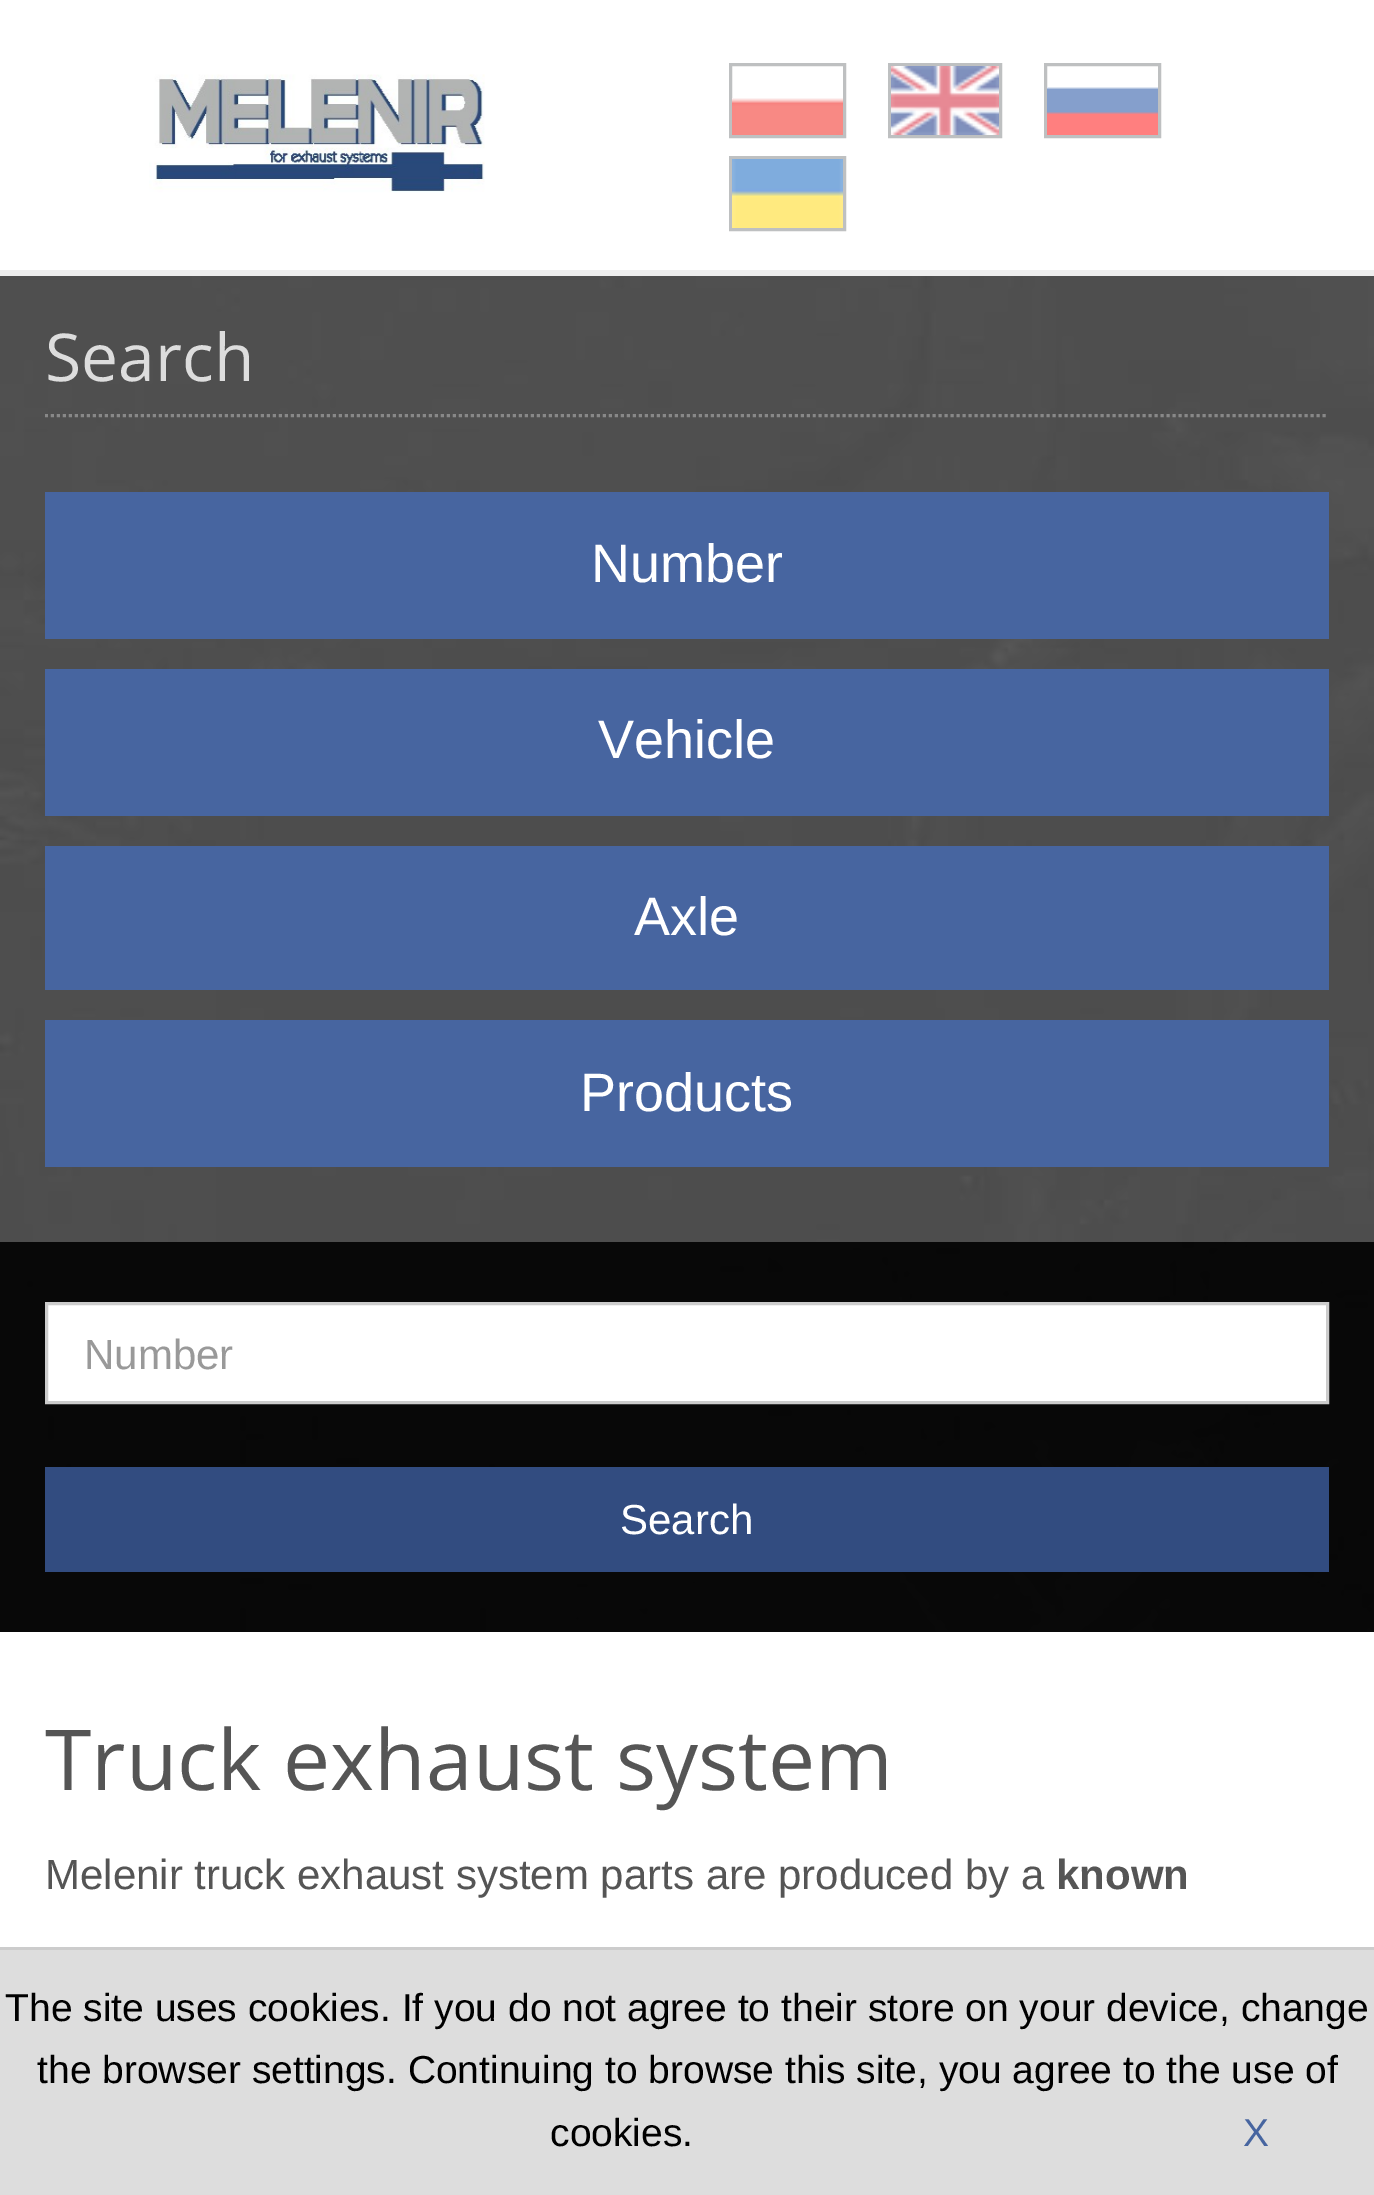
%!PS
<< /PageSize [1374 2195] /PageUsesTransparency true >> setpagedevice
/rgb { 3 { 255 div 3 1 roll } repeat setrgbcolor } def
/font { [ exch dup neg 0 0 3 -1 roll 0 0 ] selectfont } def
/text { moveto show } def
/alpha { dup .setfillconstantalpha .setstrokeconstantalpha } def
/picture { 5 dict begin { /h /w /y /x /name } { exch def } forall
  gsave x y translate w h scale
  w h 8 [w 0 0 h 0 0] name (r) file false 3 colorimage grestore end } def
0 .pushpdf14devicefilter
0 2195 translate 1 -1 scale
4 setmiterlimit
255 255 255 rgb
0 0 1374 2195 rectfill
238 238 238 rgb
0 270 1374 6 rectfill
(img_01.rgb) 149 74 336 119 picture
190 192 193 rgb
3 setlinewidth
730.5 64.5 114 72 rectstroke
889.5 64.5 111 72 rectstroke
1045.5 64.5 114 72 rectstroke
(img_02.rgb) 732 98 111 37 picture
(img_03.rgb) 891 66 108 69 picture
(img_04.rgb) 1047 87 111 48 picture
730.5 157.5 114 72 rectstroke
(img_05.rgb) 732 159 111 69 picture
(img_06.rgb) 0 276 1374 1356 picture
136 136 136 rgb
[3 3] 0 setdash
45 415.5 moveto 1284 0 rlineto stroke
71 101 160 rgb
45 492 1284 147 rectfill
45 669 1284 147 rectfill
45 846 1284 144 rectfill
45 1020 1284 147 rectfill
0.9 alpha
0 0 0 rgb
0 1242 1374 390 rectfill
1 alpha
255 255 255 rgb
46.5 1303.5 moveto 1281 0 rlineto 0 99 rlineto -1281 0 rlineto closepath gsave fill grestore
204 204 204 rgb
[] 0 setdash
stroke
50 76 128 rgb
45 1467 1284 105 rectfill
221 221 221 rgb
0 1950 1374 245 rectfill
204 204 204 rgb
0 1947 1374 3 rectfill
/OpenSans-Regular 66 font
221 221 221 rgb
(Search) 45 381 text
/LiberationSans-Regular 54 font
255 255 255 rgb
(Number) 591 582 text
(Vehicle) 598 758 text
(Axle) 634 935 text
(Products) 580 1111 text
/LiberationSans-Regular 42 font
153 153 153 rgb
(Number) 84 1369 text
255 255 255 rgb
(Search) 620 1534 text
/OpenSans-Regular 84 font
85 85 85 rgb
(Truck exhaust system) 45 1790 text
/LiberationSans-Regular 42 font
(Melenir truck exhaust system parts are produced by a) 45 1889 text
/LiberationSans-Bold 42 font
(known) 1056 1889 text
/LiberationSans-Regular 39 font
0 0 0 rgb
(The site uses cookies. If you do not agree to their store on your device, change) 5 2021 text
(the browser settings. Continuing to browse this site, you agree to the use of) 37 2083 text
(cookies.) 550 2146 text
71 101 160 rgb
(X) 1243 2146 text
.poppdf14devicefilter showpage
